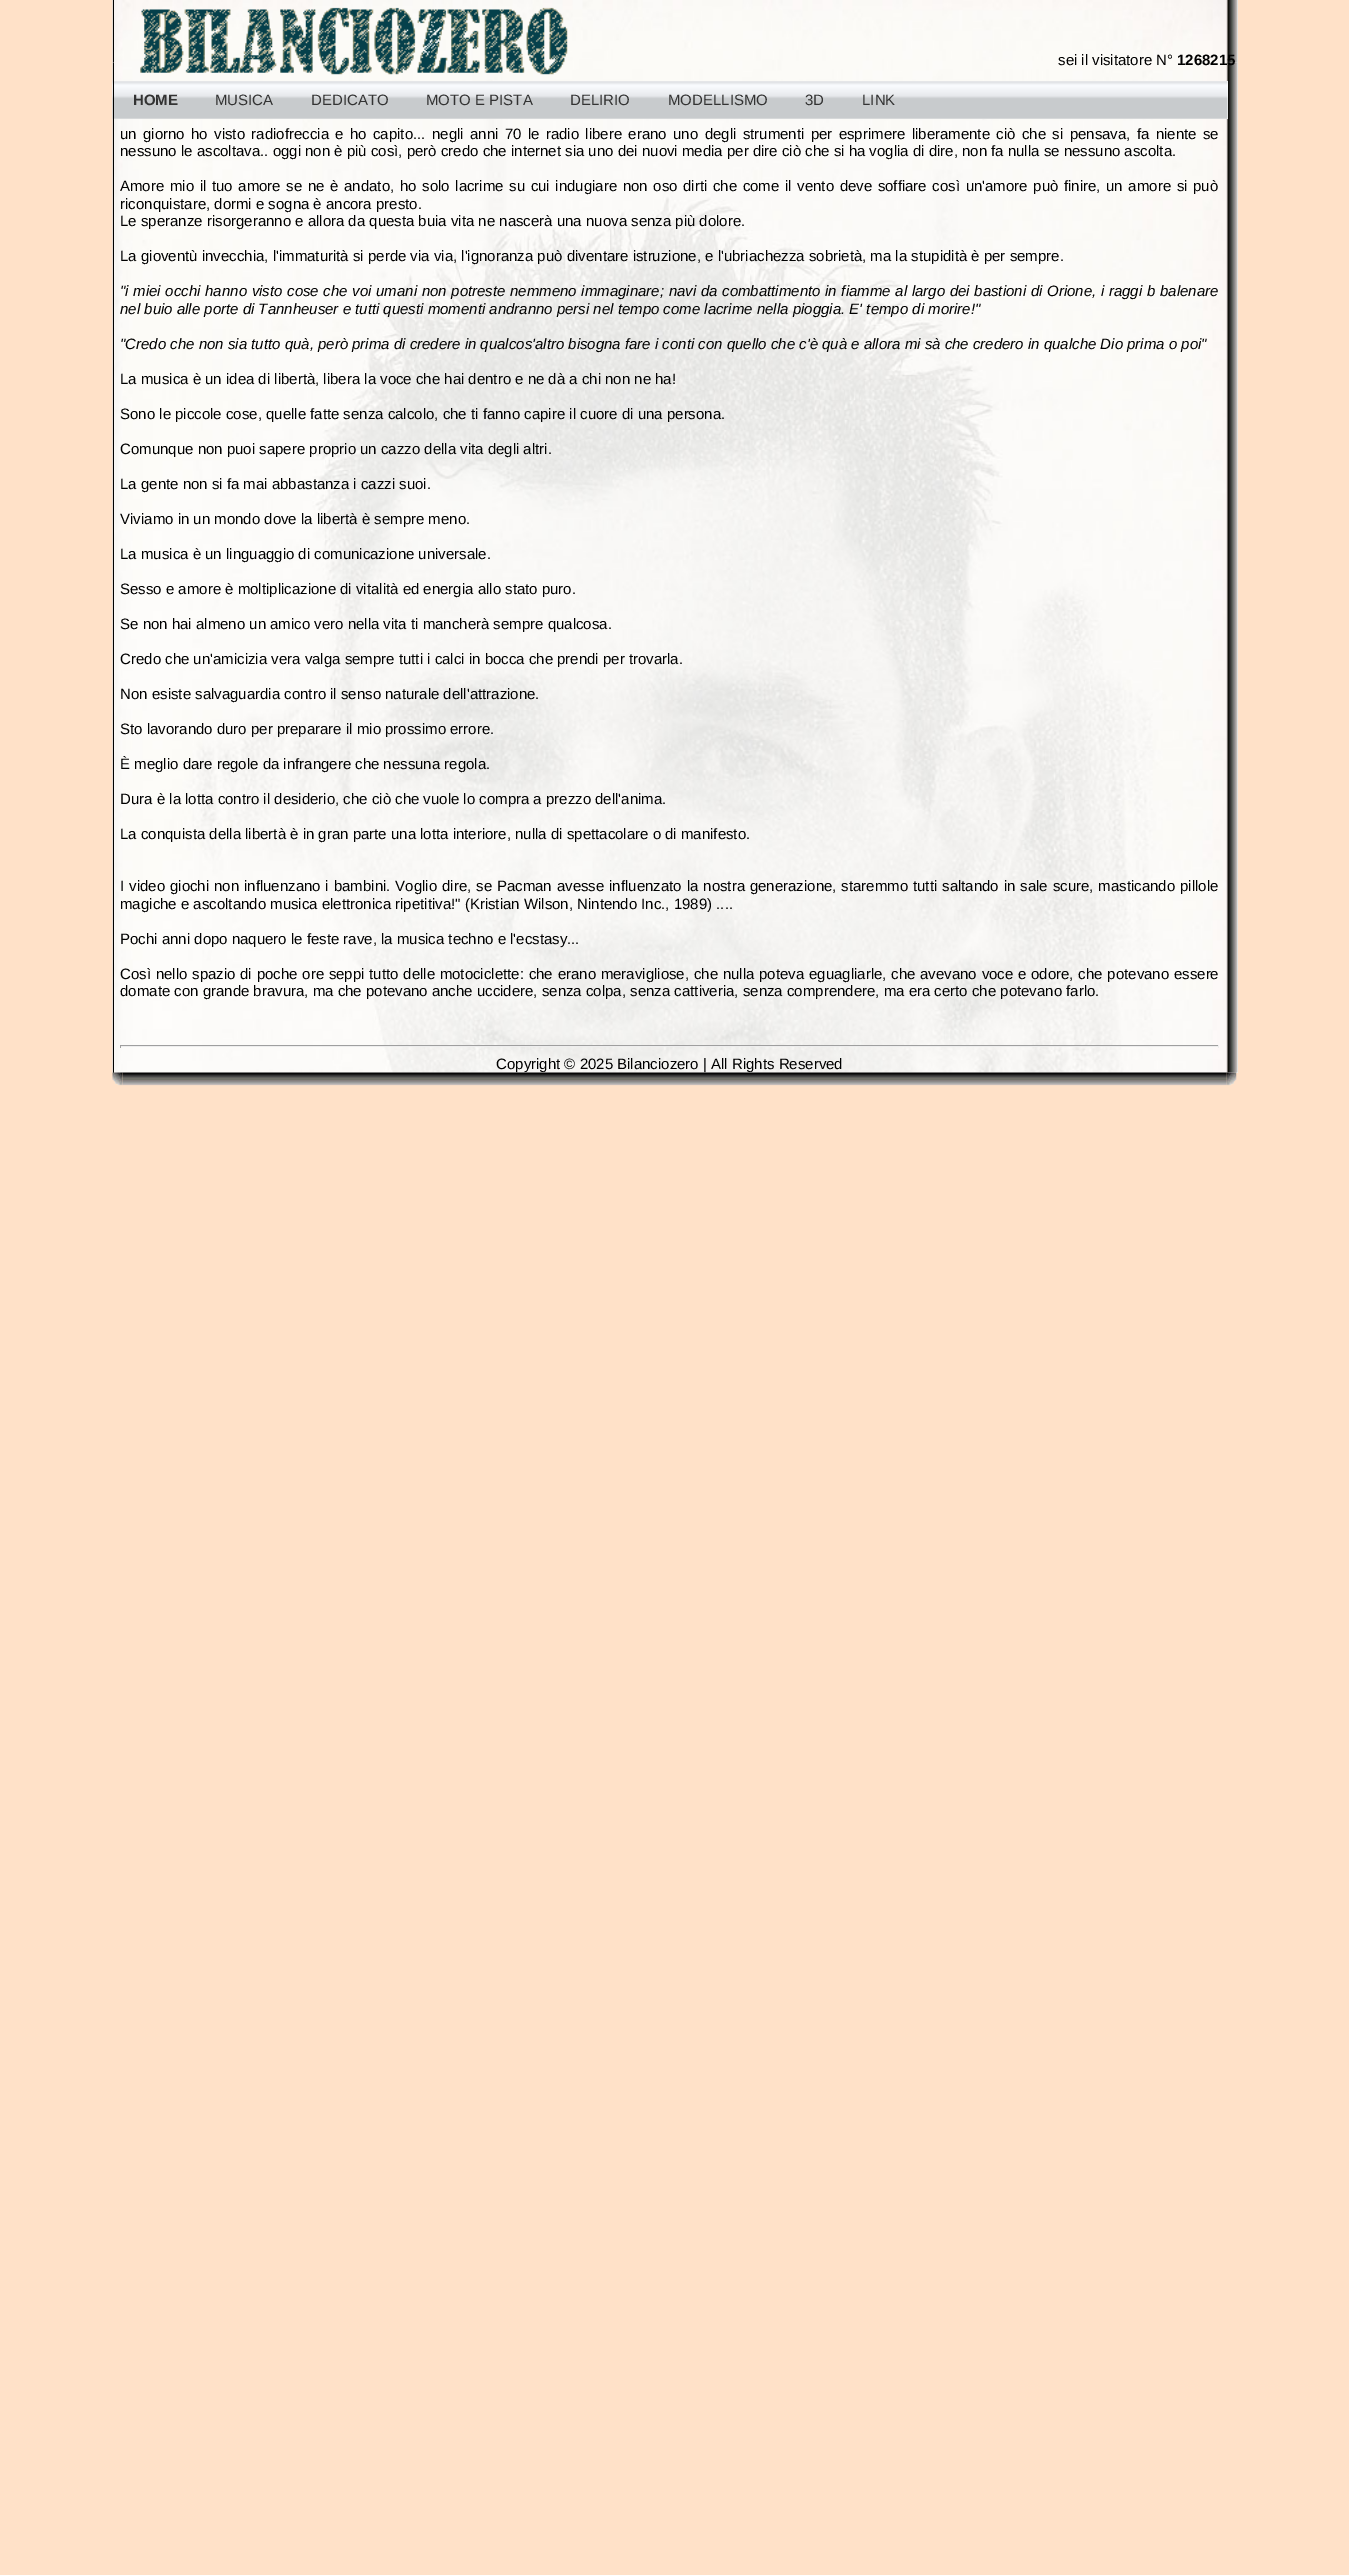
%!PS
<< /PageSize [1349 2575] >> setpagedevice
/rgb { 3 { 255 div 3 1 roll } repeat setrgbcolor } def
/font { [ exch dup neg 0 0 3 -1 roll 0 0 ] selectfont } def
/text { moveto show } def
/picture { 5 dict begin { /h /w /y /x /name } { exch def } forall
  gsave x y translate w h scale
  w h 8 [w 0 0 h 0 0] name (r) file false 3 colorimage grestore end } def
0 2575 translate 1 -1 scale
4 setmiterlimit
255 225 200 rgb
0 0 1349 2575 rectfill
251 249 247 rgb
114 0 1124 1073 rectfill
(img_01.rgb) 112 0 1126 1073 picture
(img_02.rgb) 112 0 1126 63 picture
0 0 0 rgb
113 0 1 63 rectfill
(img_05.rgb) 112 62 1126 1011 picture
(img_03.rgb) 140 7 428 68 picture
255 255 255 rgb
114 81 1114 38 rectfill
0 0 0 rgb
113 63 1 1010 rectfill
(img_04.rgb) 112 81 1116 38 picture
113 81 1 38 rectfill
159 159 159 rgb
120 1045 1099 1 rectfill
238 238 238 rgb
1218 1045 1 3 rectfill
120 1046 1099 1 rectfill
159 159 159 rgb
120 1045 1 3 rectfill
/LiberationSans-Regular 15 font
0 0 0 rgb
(sei il visitatore N°) 1058 65 text
/LiberationSans-Bold 15 font
(1268215) 1177 65 text
51 51 51 rgb
(HOME) 133 105 text
/LiberationSans-Regular 15 font
(MUSICA) 215 105 text
(DEDICATO) 311 105 text
(MOTO E PISTA) 426 105 text
(DELIRIO) 570 105 text
(MODELLISMO) 668 105 text
(3D) 805 105 text
(LINK) 862 105 text
0 0 0 rgb
120 139 moveto 2.2 0 32 (un giorno ho visto radiofreccia e ho capito... negli anni 70 le radio libere erano uno degli strumenti per esprimere liberamente ciò che si pensava, fa niente se) widthshow
(nessuno le ascoltava.. oggi non è più così, però credo che internet sia uno dei nuovi media per dire ciò che si ha voglia di dire, non fa nulla se nessuno ascolta.) 120 156 text
120 191 moveto 1.45 0 32 (Amore mio il tuo amore se ne è andato, ho solo lacrime su cui indugiare non oso dirti che come il vento deve soffiare così un'amore può finire, un amore si può) widthshow
(riconquistare, dormi e sogna è ancora presto.) 120 209 text
(Le speranze risorgeranno e allora da questa buia vita ne nascerà una nuova senza più dolore.) 120 226 text
(La gioventù invecchia, l'immaturità si perde via via, l'ignoranza può diventare istruzione, e l'ubriachezza sobrietà, ma la stupidità è per sempre.) 120 261 text
/LiberationSans-Italic 15 font
120 296 moveto 0.5 0 32 ("i miei occhi hanno visto cose che voi umani non potreste nemmeno immaginare; navi da combattimento in fiamme al largo dei bastioni di Orione, i raggi b balenare) widthshow
(nel buio alle porte di Tannheuser e tutti questi momenti andranno persi nel tempo come lacrime nella pioggia. E' tempo di morire!") 120 314 text
("Credo che non sia tutto quà, però prima di credere in qualcos'altro bisogna fare i conti con quello che c'è quà e allora mi sà che credero in qualche Dio prima o poi") 120 349 text
/LiberationSans-Regular 15 font
(La musica è un idea di libertà, libera la voce che hai dentro e ne dà a chi non ne ha!) 120 384 text
(Sono le piccole cose, quelle fatte senza calcolo, che ti fanno capire il cuore di una persona.) 120 419 text
(Comunque non puoi sapere proprio un cazzo della vita degli altri.) 120 454 text
(La gente non si fa mai abbastanza i cazzi suoi.) 120 489 text
(Viviamo in un mondo dove la libertà è sempre meno.) 120 524 text
(La musica è un linguaggio di comunicazione universale.) 120 559 text
(Sesso e amore è moltiplicazione di vitalità ed energia allo stato puro.) 120 594 text
(Se non hai almeno un amico vero nella vita ti mancherà sempre qualcosa.) 120 629 text
(Credo che un'amicizia vera valga sempre tutti i calci in bocca che prendi per trovarla.) 120 664 text
(Non esiste salvaguardia contro il senso naturale dell'attrazione.) 120 699 text
(Sto lavorando duro per preparare il mio prossimo errore.) 120 734 text
(È meglio dare regole da infrangere che nessuna regola.) 120 769 text
(Dura è la lotta contro il desiderio, che ciò che vuole lo compra a prezzo dell'anima.) 120 804 text
(La conquista della libertà è in gran parte una lotta interiore, nulla di spettacolare o di manifesto.) 120 839 text
120 891 moveto 0.75 0 32 (I video giochi non influenzano i bambini. Voglio dire, se Pacman avesse influenzato la nostra generazione, staremmo tutti saltando in sale scure, masticando pillole) widthshow
(magiche e ascoltando musica elettronica ripetitiva!" \(Kristian Wilson, Nintendo Inc., 1989\) ....) 120 909 text
(Pochi anni dopo naquero le feste rave, la musica techno e l'ecstasy...) 120 944 text
120 979 moveto 0.6 0 32 (Così nello spazio di poche ore seppi tutto delle motociclette: che erano meravigliose, che nulla poteva eguagliarle, che avevano voce e odore, che potevano essere) widthshow
(domate con grande bravura, ma che potevano anche uccidere, senza colpa, senza cattiveria, senza comprendere, ma era certo che potevano farlo.) 120 996 text
(Copyright © 2025 Bilanciozero | All Rights Reserved) 496 1069 text
(img_07.rgb) 122 1072 1105 14 picture
(img_06.rgb) 112 1072 11 14 picture
(img_08.rgb) 1226 1072 11 14 picture
showpage
